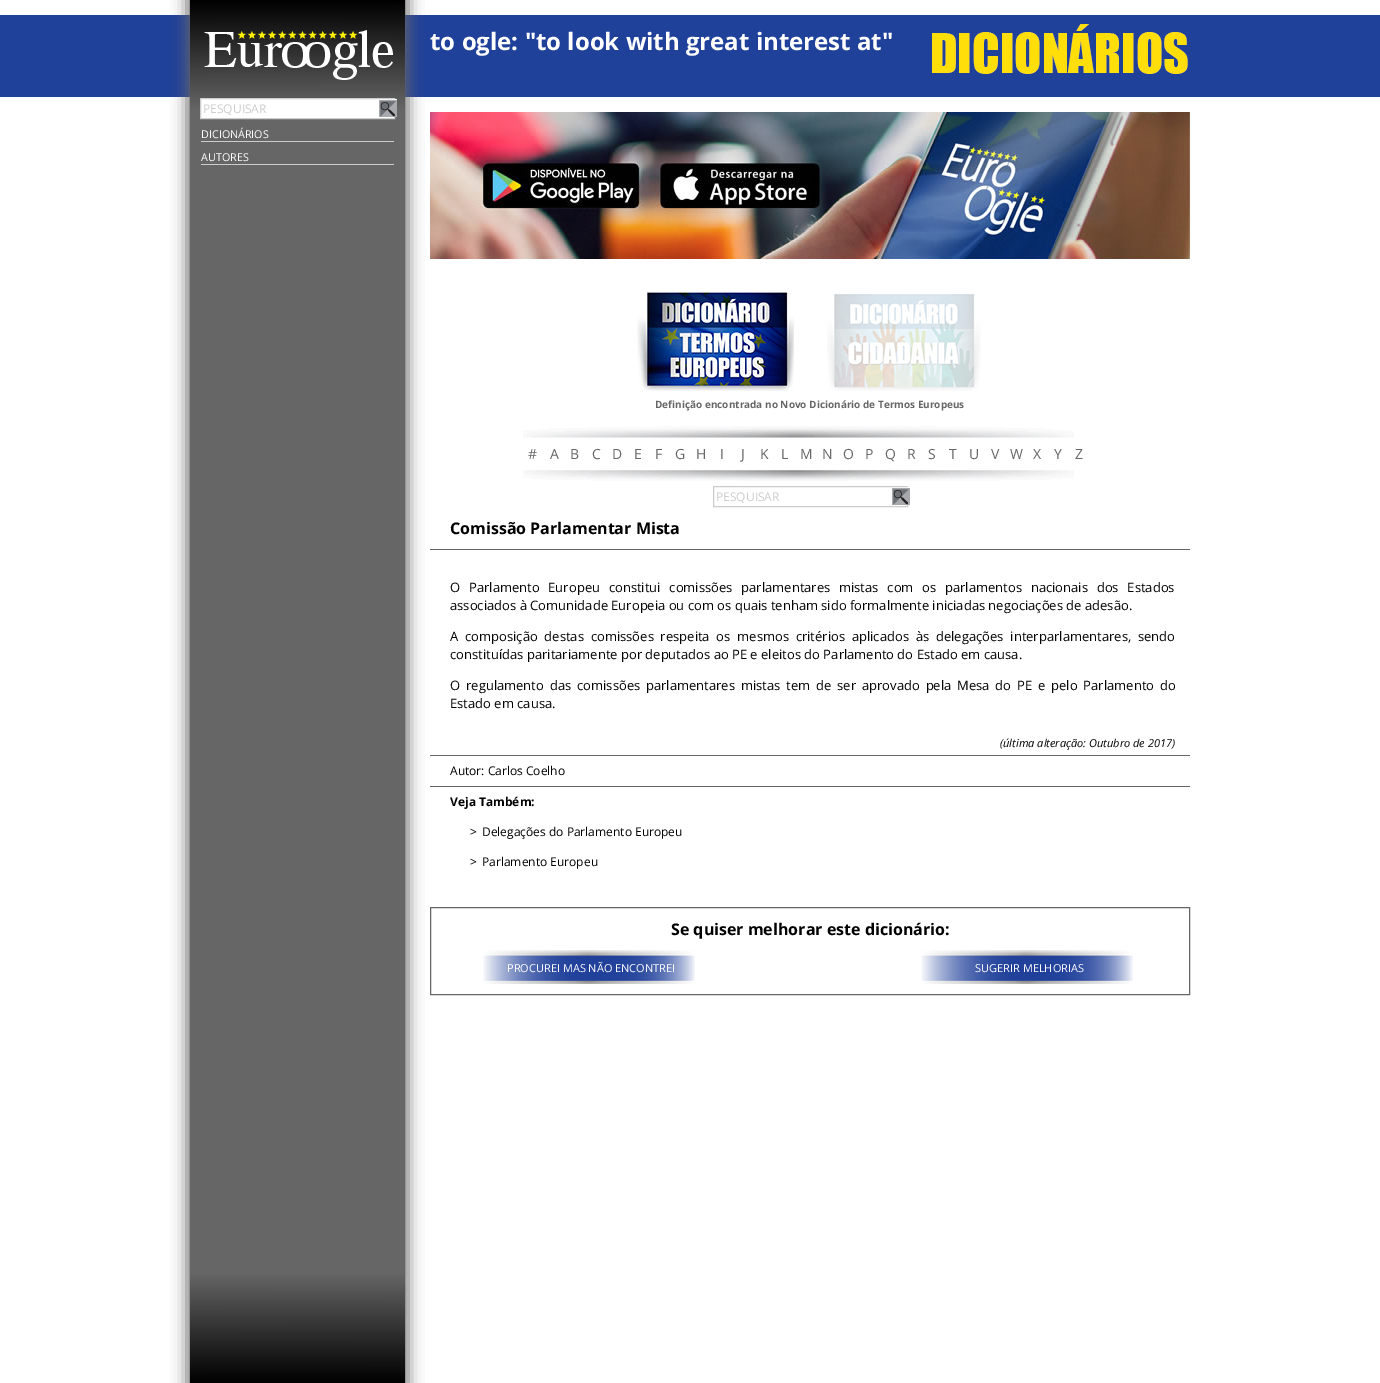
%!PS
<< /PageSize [1380 1383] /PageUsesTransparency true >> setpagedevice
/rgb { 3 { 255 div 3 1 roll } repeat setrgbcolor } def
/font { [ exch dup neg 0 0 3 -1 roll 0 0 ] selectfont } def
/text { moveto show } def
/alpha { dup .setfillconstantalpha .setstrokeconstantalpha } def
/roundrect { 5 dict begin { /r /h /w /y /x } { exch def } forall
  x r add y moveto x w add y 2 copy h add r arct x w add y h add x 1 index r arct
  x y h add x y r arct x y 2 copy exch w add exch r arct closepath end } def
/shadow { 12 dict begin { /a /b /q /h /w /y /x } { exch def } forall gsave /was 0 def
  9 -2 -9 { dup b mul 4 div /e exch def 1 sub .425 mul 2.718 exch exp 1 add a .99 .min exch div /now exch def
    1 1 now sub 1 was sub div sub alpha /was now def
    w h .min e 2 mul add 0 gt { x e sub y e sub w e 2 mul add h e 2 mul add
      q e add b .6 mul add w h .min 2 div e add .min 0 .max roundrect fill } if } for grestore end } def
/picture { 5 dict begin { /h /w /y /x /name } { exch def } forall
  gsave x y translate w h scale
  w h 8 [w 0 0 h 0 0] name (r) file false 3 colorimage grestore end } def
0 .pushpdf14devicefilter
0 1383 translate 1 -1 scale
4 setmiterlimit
255 255 255 rgb
0 0 1380 1383 rectfill
32 65 154 rgb
0 15 1380 82 rectfill
(img_01.rgb) 932 24 256 50 picture
102 102 102 rgb
187 -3 221 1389 0 7.5 1 shadow
gsave 190 0 moveto 215 0 rlineto 0 1383 rlineto -215 0 rlineto closepath clip newpath
<< /ShadingType 2 /ColorSpace /DeviceRGB /Coords [297 0 298 1383] /Extend [true true] /Function << /FunctionType 3 /Domain [0 1] /Functions [<< /FunctionType 2 /Domain [0 1] /C0 [0 0 0] /C1 [0.4 0.4 0.4] /N 1 >> << /FunctionType 2 /Domain [0 1] /C0 [0.4 0.4 0.4] /C1 [0.4 0.4 0.4] /N 1 >> << /FunctionType 2 /Domain [0 1] /C0 [0.4 0.4 0.4] /C1 [0 0 0] /N 1 >>] /Bounds [0.08 0.92] /Encode [0 1 0 1 0 1] >> >> shfill grestore
(img_02.rgb) 204 30 189 50 picture
255 255 255 rgb
200.5 98.5 moveto 194 0 rlineto 0 20 rlineto -194 0 rlineto closepath gsave fill grestore
204 204 204 rgb
stroke
255 255 255 rgb
394 99 3 1 rectfill
(img_03.rgb) 379 100 18 17 picture
204 204 204 rgb
201 141 193 1 rectfill
201 164 193 1 rectfill
(img_04.rgb) 430 112 760 147 picture
(img_05.rgb) 637 291 157 100 picture
(img_06.rgb) 827 294 154 97 picture
(img_07.rgb) 523 426 551 55 picture
713.5 486.5 194 20 rectstroke
255 255 255 rgb
907 487 3 1 rectfill
(img_03.rgb) 892 488 18 17 picture
102 102 102 rgb
430 549 760 1 rectfill
430 755 760 1 rectfill
430 786 760 1 rectfill
430.5 907.5 759 87 rectstroke
(img_08.rgb) 483 950 212 34 picture
(img_08.rgb) 921 950 212 34 picture
/OpenSans-Bold 24 font
255 255 255 rgb
(to ogle: "to look with great interest at") 430 50 text
/OpenSans-Regular 12 font
204 204 204 rgb
(PESQUISAR) 203 113 text
/OpenSans-Regular 10.75 font
255 255 255 rgb
(DICIONÁRIOS) 201 138 text
(AUTORES) 201 161 text
/OpenSans-Bold 10 font
102 102 102 rgb
(Definição encontrada no Novo Dicionário de Termos Europeus) 655 408 text
/OpenSans-Regular 14 font
(#) 528 459 text
(A) 550 459 text
(B) 570 459 text
(C) 592 459 text
(D) 612 459 text
(E) 634 459 text
(F) 655 459 text
(G) 675 459 text
(H) 696 459 text
(I) 720 459 text
(J) 741 459 text
(K) 760 459 text
(L) 781 459 text
(M) 800 459 text
(N) 822 459 text
(O) 843 459 text
(P) 865 459 text
(Q) 885 459 text
(R) 907 459 text
(S) 928 459 text
(T) 949 459 text
(U) 969 459 text
(V) 991 459 text
(W) 1010 459 text
(X) 1033 459 text
(Y) 1054 459 text
(Z) 1075 459 text
/OpenSans-Regular 12 font
204 204 204 rgb
(PESQUISAR) 716 501 text
/OpenSans-Bold 16 font
0 0 0 rgb
(Comissão Parlamentar Mista) 450 534 text
/OpenSans-Regular 13 font
450 592 moveto 5.4 0 32 (O Parlamento Europeu constitui comissões parlamentares mistas com os parlamentos nacionais dos Estados) widthshow
(associados à Comunidade Europeia ou com os quais tenham sido formalmente iniciadas negociações de adesão.) 450 610 text
450 641 moveto 3.4 0 32 (A composição destas comissões respeita os mesmos critérios aplicados às delegações interparlamentares, sendo) widthshow
(constituídas paritariamente por deputados ao PE e eleitos do Parlamento do Estado em causa.) 450 659 text
450 690 moveto 2.5 0 32 (O regulamento das comissões parlamentares mistas tem de ser aprovado pela Mesa do PE e pelo Parlamento do) widthshow
(Estado em causa.) 450 708 text
/OpenSans-Italic 11 font
(\(última alteração: Outubro de 2017\)) 1000 747 text
/OpenSans-Regular 12 font
(Autor: Carlos Coelho) 450 775 text
/OpenSans-Bold 12 font
(Veja Também:) 450 806 text
/OpenSans-Regular 12 font
(>) 470 836 text
(Delegações do Parlamento Europeu) 482 836 text
(>) 470 866 text
(Parlamento Europeu) 482 866 text
/OpenSans-Bold 16 font
(Se quiser melhorar este dicionário:) 671 935 text
/OpenSans-Regular 11 font
255 255 255 rgb
(PROCUREI MAS NÃO ENCONTREI) 507 972 text
(SUGERIR MELHORIAS) 975 972 text
.poppdf14devicefilter showpage
